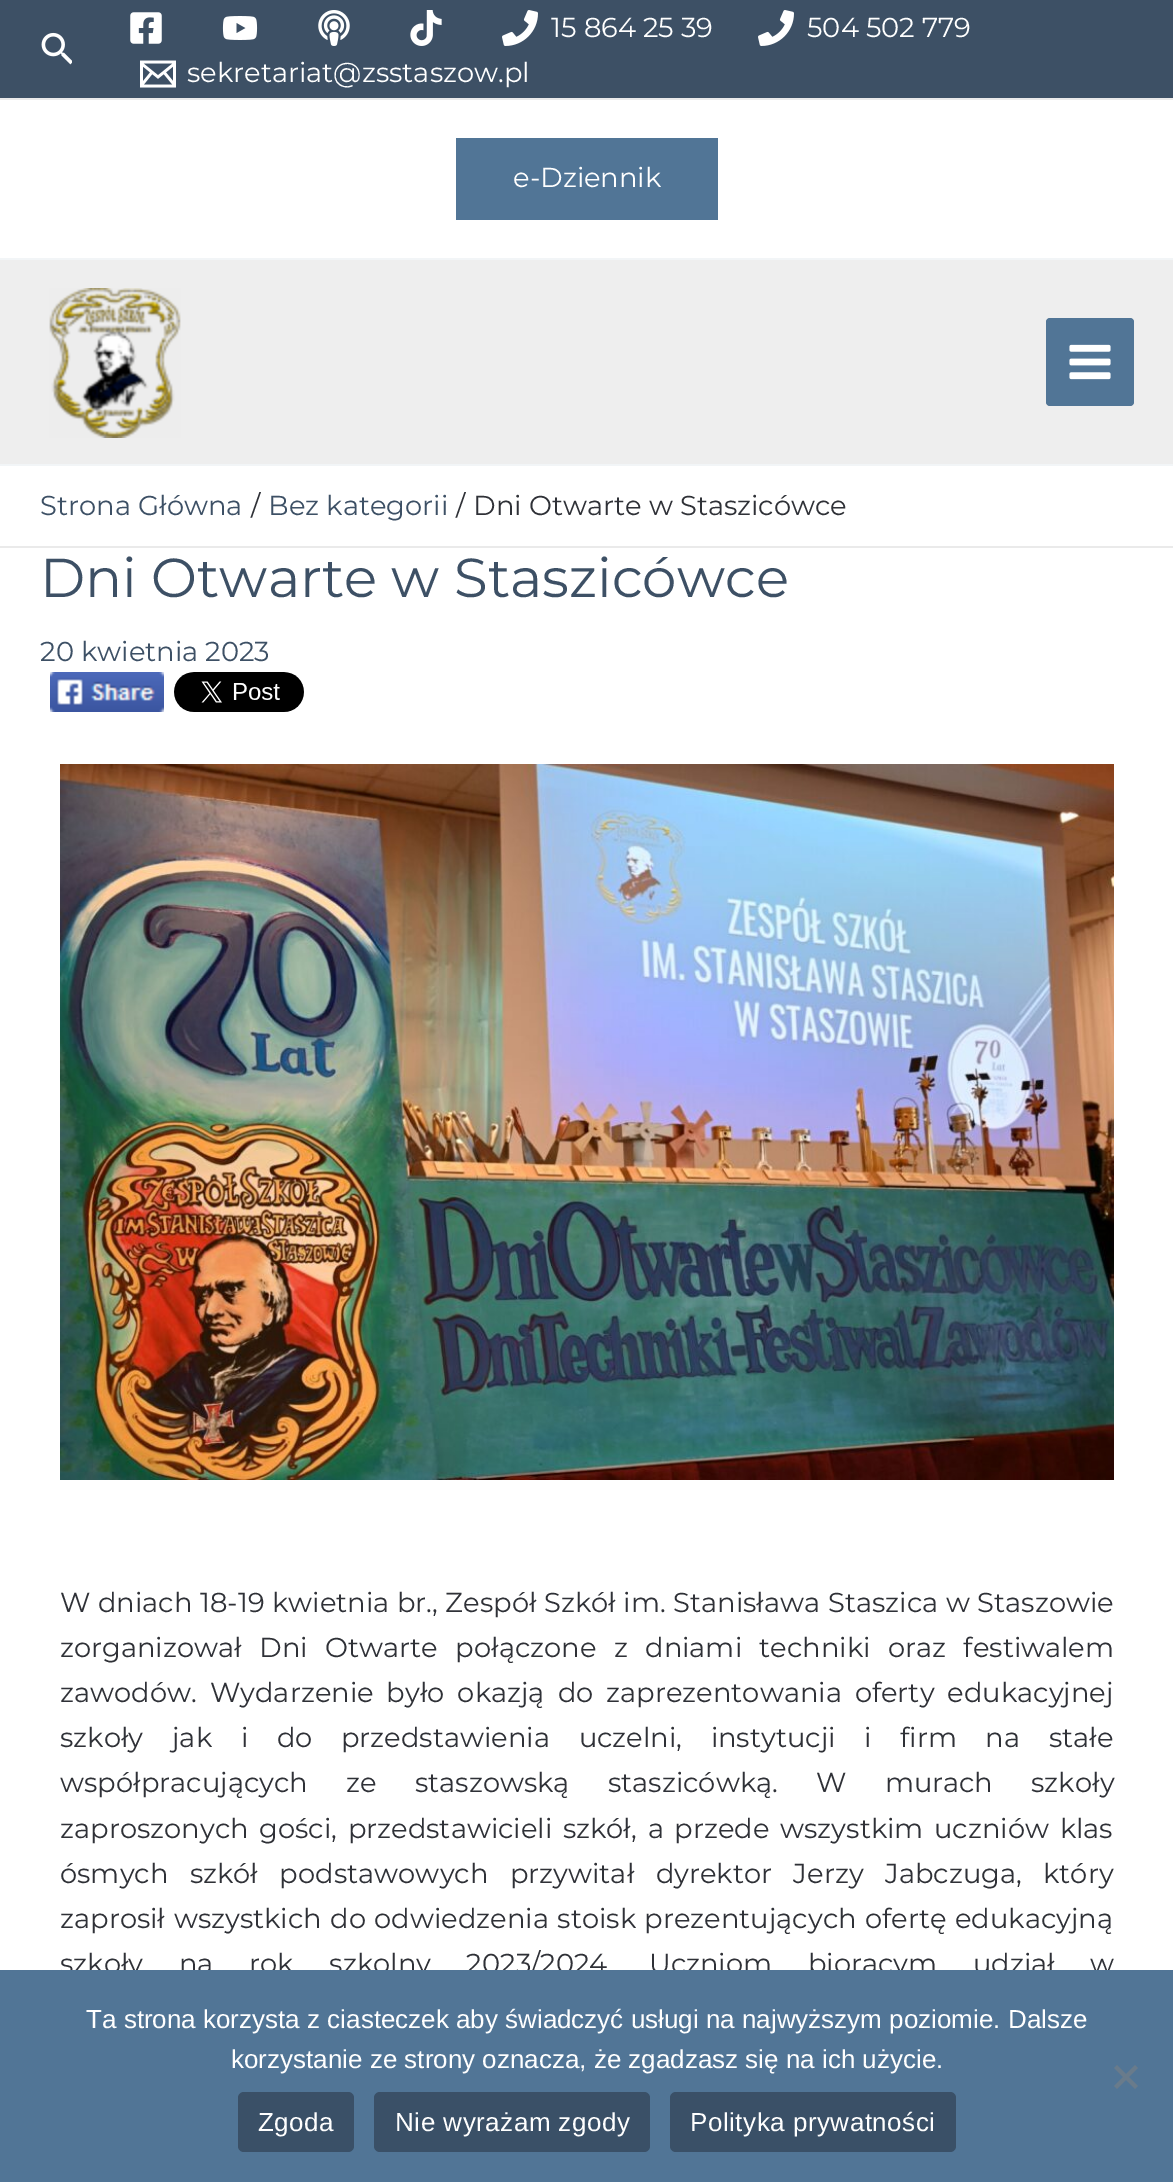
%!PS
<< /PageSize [1173 2182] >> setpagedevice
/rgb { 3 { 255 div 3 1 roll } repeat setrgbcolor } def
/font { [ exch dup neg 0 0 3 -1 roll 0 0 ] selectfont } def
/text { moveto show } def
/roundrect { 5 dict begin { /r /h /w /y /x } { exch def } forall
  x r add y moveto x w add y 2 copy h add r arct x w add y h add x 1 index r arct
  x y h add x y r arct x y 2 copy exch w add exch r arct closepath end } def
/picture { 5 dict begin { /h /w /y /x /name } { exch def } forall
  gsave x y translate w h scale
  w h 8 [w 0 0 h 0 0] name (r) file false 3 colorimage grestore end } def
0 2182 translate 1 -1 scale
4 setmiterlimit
255 255 255 rgb
0 0 1173 2182 rectfill
61 80 101 rgb
0 0 1173 98 rectfill
234 234 234 rgb
0 98 1173 2 rectfill
(img_01.rgb) 41 32 31 33 picture
(img_02.rgb) 130 12 32 32 picture
(img_03.rgb) 222 16 36 24 picture
(img_04.rgb) 318 10 32 36 picture
(img_05.rgb) 410 10 32 36 picture
(img_06.rgb) 502 10 36 36 picture
(img_06.rgb) 758 10 36 36 picture
(img_07.rgb) 140 60 36 28 picture
242 245 247 rgb
0 258 1173 2 rectfill
81 117 150 rgb
456 138 262 82 rectfill
238 238 238 rgb
0 260 1173 204 rectfill
242 245 247 rgb
0 464 1173 2 rectfill
(img_08.rgb) 49 288 132 150 picture
81 117 150 rgb
1046 318 88 88 4 roundrect fill
(img_09.rgb) 1069 344 42 36 picture
234 234 234 rgb
0 546 1173 2 rectfill
(img_10.rgb) 50 672 114 40 picture
(img_11.rgb) 174 672 130 40 picture
(img_12.rgb) 60 764 1054 716 picture
/Montserrat-Regular 27.35 font
255 255 255 rgb
(15 864 25 39) 551 37 text
(504 502 779) 807 37 text
(sekretariat@zsstaszow.pl) 187 82 text
(e-Dziennik) 513 187 text
61 80 101 rgb
(Strona Główna) 40 515 text
47 49 55 rgb
(/) 251 515 text
61 80 101 rgb
(Bez kategorii) 268 515 text
47 49 55 rgb
(/) 456 515 text
(Dni Otwarte w Staszicówce) 473 515 text
/Montserrat-Regular 54.75 font
61 80 101 rgb
(Dni Otwarte w Staszicówce) 40 597 text
/Montserrat-Regular 27.35 font
(20 kwietnia 2023) 40 661 text
47 49 55 rgb
60 1612 moveto 0.4 0 32 (W dniach 18-19 kwietnia br., Zespół Szkół im. Stanisława Staszica w Staszowie) widthshow
60 1657 moveto 10.25 0 32 (zorganizował Dni Otwarte połączone z dniami techniki oraz festiwalem) widthshow
60 1702 moveto 5.75 0 32 (zawodów. Wydarzenie było okazją do zaprezentowania oferty edukacyjnej) widthshow
60 1747 moveto 21.5 0 32 (szkoły jak i do przedstawienia uczelni, instytucji i firm na stałe) widthshow
60 1792 moveto 31 0 32 (współpracujących ze staszowską staszicówką. W murach szkoły) widthshow
60 1838 moveto 3.5 0 32 (zaproszonych gości, przedstawicieli szkół, a przede wszystkim uczniów klas) widthshow
60 1883 moveto 14.25 0 32 (ósmych szkół podstawowych przywitał dyrektor Jerzy Jabczuga, który) widthshow
60 1928 moveto 1.25 0 32 (zaprosił wszystkich do odwiedzenia stoisk prezentujących ofertę edukacyjną) widthshow
60 1973 moveto 28.5 0 32 (szkoły na rok szkolny 2023/2024. Uczniom biorącym udział w) widthshow
81 117 150 rgb
0 1970 1173 212 rectfill
/LiberationSans-Regular 26 font
255 255 255 rgb
(Ta strona korzysta z ciasteczek aby świadczyć usługi na najwyższym poziomie. Dalsze) 86 2028 text
(korzystanie ze strony oznacza, że zgadzasz się na ich użycie.) 231 2068 text
105 123 139 rgb
1135 2065 moveto 3 3 rlineto -21 21 rlineto -3 -3 rlineto closepath fill
1114 2068 moveto 3 -3 rlineto 21 21 rlineto -3 3 rlineto closepath fill
58 80 103 rgb
238 2092 116 60 6 roundrect fill
255 255 255 rgb
258 2131 moveto 0.5 0 (Zgoda) ashow
58 80 103 rgb
374 2092 276 60 6 roundrect fill
255 255 255 rgb
395 2131 moveto 0.5 0 (Nie wyrażam zgody) ashow
58 80 103 rgb
670 2092 286 60 6 roundrect fill
255 255 255 rgb
690 2131 moveto 0.5 0 (Polityka prywatności) ashow
showpage
